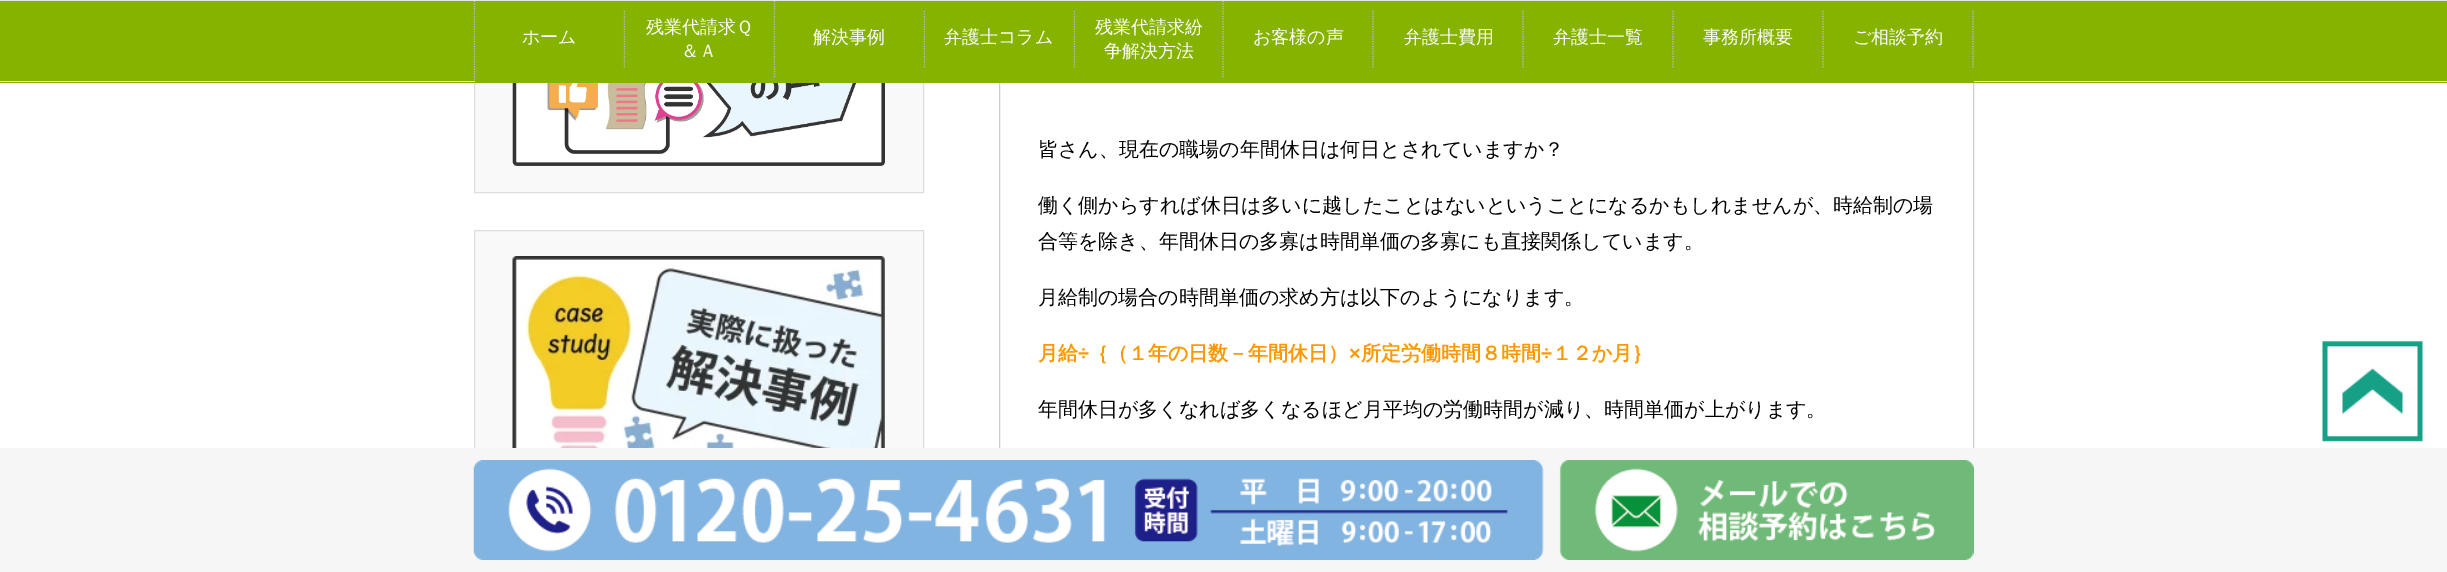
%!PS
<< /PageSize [2447 572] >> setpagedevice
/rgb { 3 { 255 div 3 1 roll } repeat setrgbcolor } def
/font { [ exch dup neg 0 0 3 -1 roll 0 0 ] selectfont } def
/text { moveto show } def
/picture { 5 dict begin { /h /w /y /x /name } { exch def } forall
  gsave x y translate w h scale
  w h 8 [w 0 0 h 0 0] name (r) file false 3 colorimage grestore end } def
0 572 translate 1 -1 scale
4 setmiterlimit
255 255 255 rgb
0 0 2447 572 rectfill
249 249 249 rgb
475 83 448 109 rectfill
221 221 221 rgb
474.5 -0.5 449 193 rectstroke
204 204 204 rgb
999.5 -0.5 974 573 rectstroke
134 179 0 rgb
0 1 2447 82 rectfill
230 230 230 rgb
0 0 2447 1 rectfill
0 81 2447 1 rectfill
188 188 188 rgb
1.2 setlinewidth
[1.25 1.25] 0 setdash
474.5 1 moveto 0 80 rlineto stroke
134 179 0 rgb
475 78 150 4 rectfill
475 11 1 57 rectfill
188 188 188 rgb
624.5 11 moveto 0 56.5 rlineto stroke
134 179 0 rgb
625 81 1349 1 rectfill
625 11 1 57 rectfill
188 188 188 rgb
774.5 1 moveto 0 76.5 rlineto stroke
134 179 0 rgb
775 11 1 57 rectfill
188 188 188 rgb
924.5 11 moveto 0 56.5 rlineto stroke
134 179 0 rgb
925 11 1 57 rectfill
188 188 188 rgb
1074.5 11 moveto 0 56.5 rlineto stroke
134 179 0 rgb
1075 11 1 57 rectfill
188 188 188 rgb
1223 1 moveto 0 76.5 rlineto stroke
1373 11 moveto 0 56.5 rlineto stroke
1523 11 moveto 0 56.5 rlineto stroke
1673 11 moveto 0 56.5 rlineto stroke
1823 11 moveto 0 56.5 rlineto stroke
1973 11 moveto 0 56.5 rlineto stroke
(img_01.rgb) 512 83 373 83 picture
249 249 249 rgb
475 231 448 217 rectfill
221 221 221 rgb
1 setlinewidth
[] 0 setdash
474.5 230.5 449 274 rectstroke
(img_02.rgb) 512 256 373 192 picture
(img_03.rgb) 2322 341 101 101 picture
246 246 246 rgb
0 448 2447 124 rectfill
(img_04.rgb) 473 460 1501 100 picture
/WenQuanYiZenHei-Medium 18 font
255 255 255 rgb
(ホーム) 522 43 text
(残業代請求Ｑ) 646 33 text
(＆Ａ) 681 57 text
(解決事例) 813 43 text
(弁護士コラム) 944 43 text
(残業代請求紛) 1095 33 text
(争解決方法) 1104 57 text
(お客様の声) 1253 43 text
(弁護士費用) 1404 43 text
(弁護士一覧) 1553 43 text
(事務所概要) 1703 43 text
(ご相談予約) 1853 43 text
/WenQuanYiZenHei-Medium 20 font
0 0 0 rgb
(皆さん、現在の職場の年間休日は何日とされていますか？) 1038 156 text
(働く側からすれば休日は多いに越したことはないということになるかもしれませんが、時給制の場) 1038 212 text
(合等を除き、年間休日の多寡は時間単価の多寡にも直接関係しています。) 1038 248 text
(月給制の場合の時間単価の求め方は以下のようになります。) 1038 304 text
/WenQuanYiZenHei-Bold 20 font
255 152 0 rgb
(月給) 1038 360 text
/LiberationSans-Bold 20 font
(÷) 1078 360 text
/WenQuanYiZenHei-Bold 20 font
(｛（１年の日数－年間休日）) 1088 360 text
/LiberationSans-Bold 20 font
(×) 1349 360 text
/WenQuanYiZenHei-Bold 20 font
(所定労働時間８時間) 1361 360 text
/LiberationSans-Bold 20 font
(÷) 1541 360 text
/WenQuanYiZenHei-Bold 20 font
(１２か月｝) 1552 360 text
/WenQuanYiZenHei-Medium 20 font
0 0 0 rgb
(年間休日が多くなれば多くなるほど月平均の労働時間が減り、時間単価が上がります。) 1038 416 text
showpage
